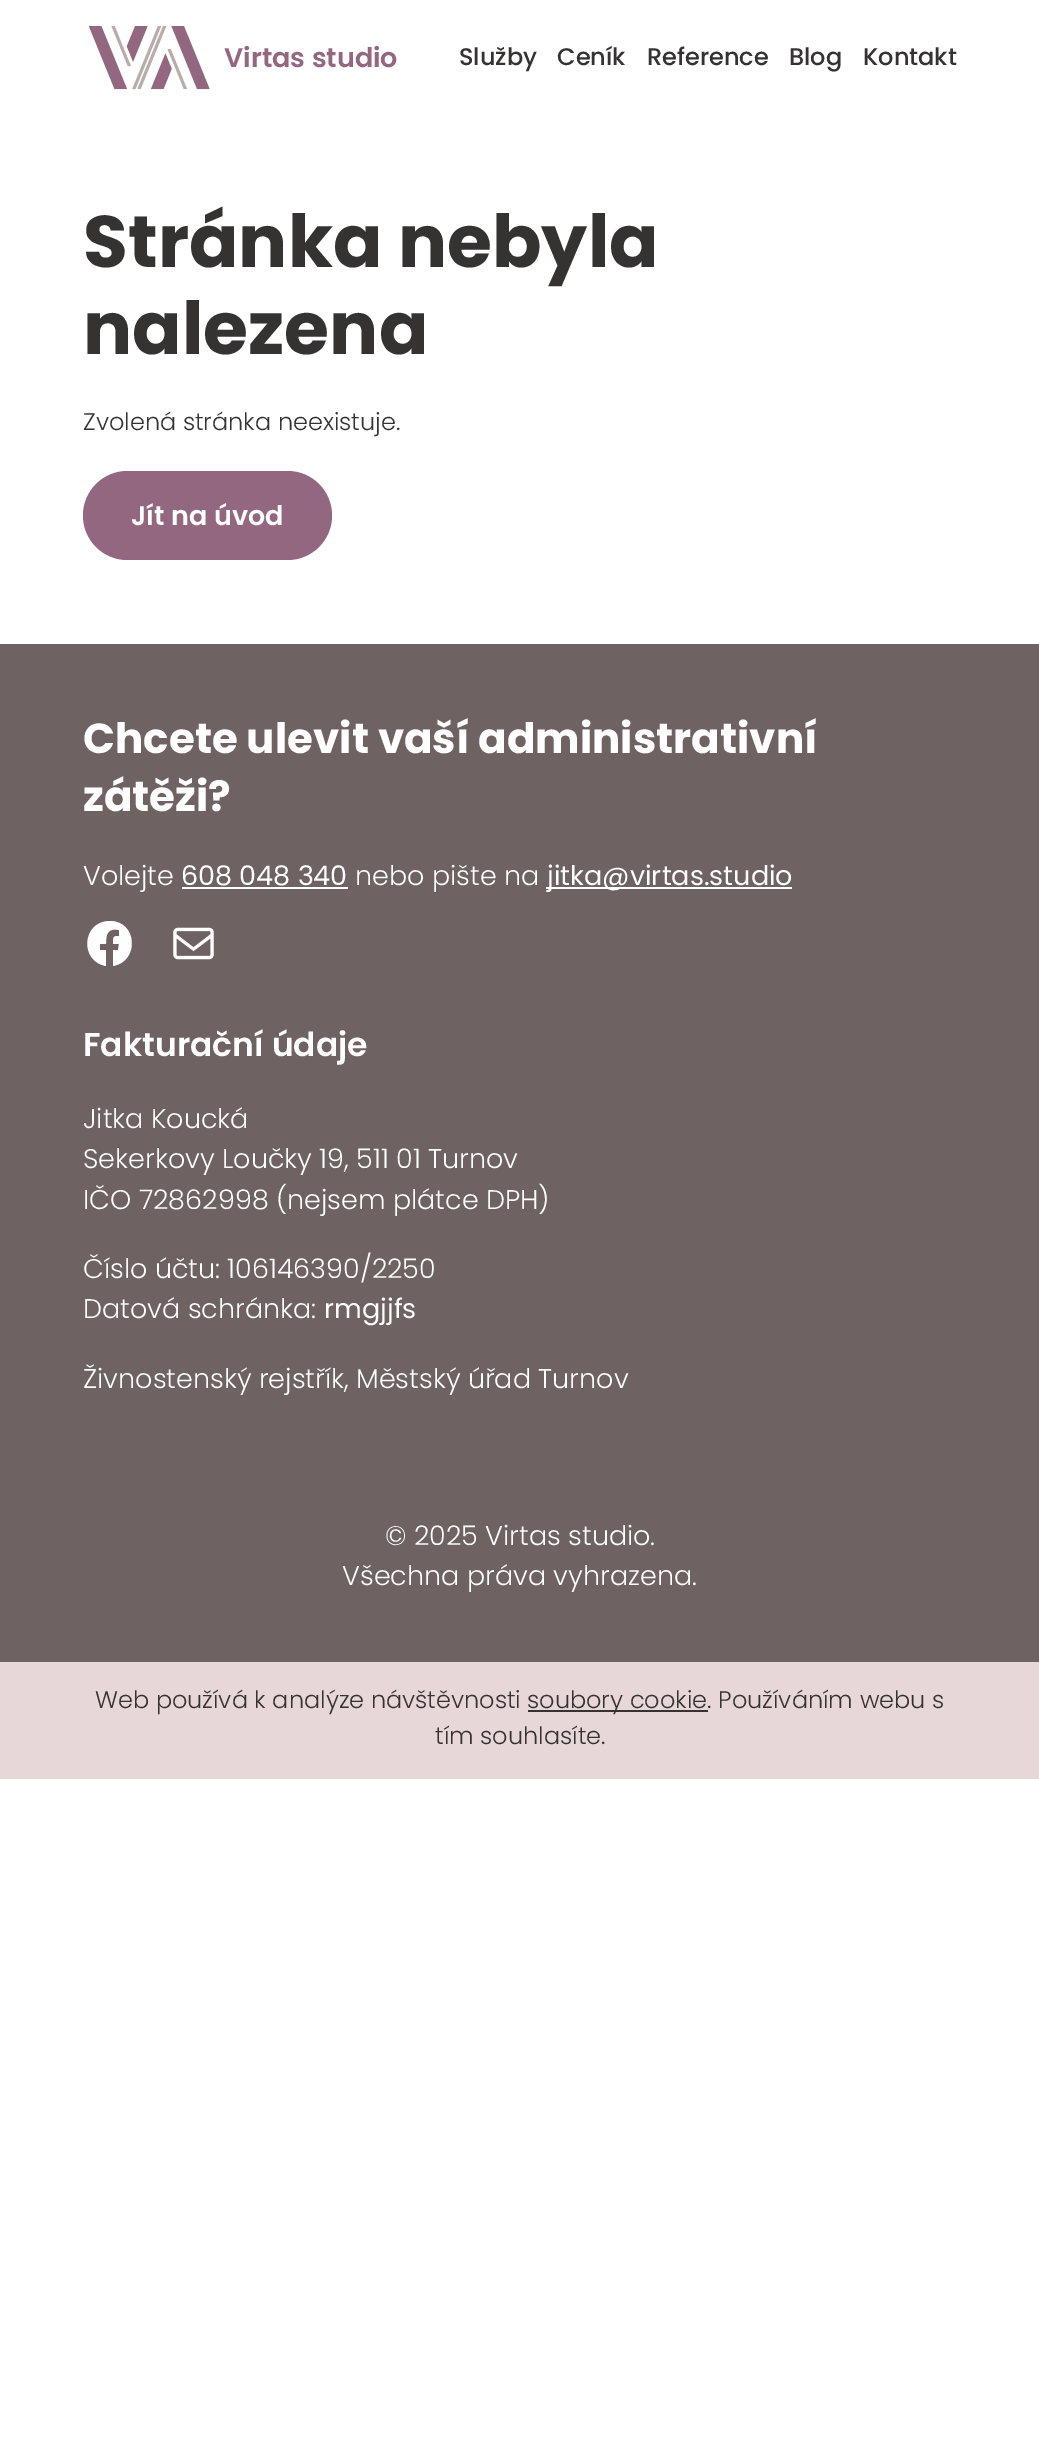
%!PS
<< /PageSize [1039 2457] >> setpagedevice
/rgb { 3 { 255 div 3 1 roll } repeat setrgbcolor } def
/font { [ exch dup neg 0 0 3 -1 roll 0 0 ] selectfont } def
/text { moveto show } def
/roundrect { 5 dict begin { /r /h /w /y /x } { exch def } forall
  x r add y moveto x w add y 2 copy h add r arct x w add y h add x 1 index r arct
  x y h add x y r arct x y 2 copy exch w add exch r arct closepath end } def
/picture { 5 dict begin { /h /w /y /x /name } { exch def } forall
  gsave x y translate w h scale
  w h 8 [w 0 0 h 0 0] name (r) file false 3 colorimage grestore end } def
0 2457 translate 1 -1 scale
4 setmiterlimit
255 255 255 rgb
0 0 1039 2457 rectfill
(img_01.rgb) 88 26 122 64 picture
147 103 127 rgb
83 471 249 89 44.5 roundrect fill
111 98 99 rgb
0 644 1039 1018 rectfill
254 254 254 rgb
182 887 166 2 rectfill
546 887 246 2 rectfill
110 921 moveto -28 0 -31 40 -4 45 rcurveto 0 -16 rlineto -6 0 rlineto 0 -6 rlineto 6 0 rlineto 0 -11 2 -16 13 -14 rcurveto 0 6 rlineto -6 0 -6 1 -6 8 rcurveto 6 0 rlineto -1 6 rlineto -5 0 rlineto 0 16 rlineto 27 -5 24 -45 -3 -45 rcurveto closepath fill
(img_02.rgb) 173 927 41 33 picture
232 215 217 rgb
0 1662 1039 117 rectfill
53 50 50 rgb
528 1710 180 2 rectfill
/Poppins-SemiBold 27 font
147 103 127 rgb
(Virtas studio) 224 67 text
/Poppins-Medium 24 font
53 50 50 rgb
(Služby) 459 65 text
(Ceník) 557 65 text
(Reference) 647 65 text
(Blog) 789 65 text
(Kontakt) 863 65 text
/Poppins-Bold 73 font
(Stránka nebyla) 83 267 text
(nalezena) 83 354 text
/Poppins-Light 24 font
(Zvolená stránka neexistuje.) 83 430 text
/Poppins-SemiBold 27 font
254 254 254 rgb
(Jít na úvod) 131 525 text
/Poppins-Bold 42 font
(Chcete ulevit vaší administrativní) 83 753 text
(zátěži?) 83 811 text
/Poppins-Light 27 font
(Volejte) 83 885 text
/Poppins-Regular 27 font
(608 048 340) 181 885 text
/Poppins-Light 27 font
(nebo pište na) 355 885 text
/Poppins-Regular 27 font
(jitka@virtas.studio) 547 885 text
/Poppins-SemiBold 33 font
(Fakturační údaje) 83 1056 text
/Poppins-Light 27 font
(Jitka Koucká) 83 1128 text
(Sekerkovy Loučky 19, 511 01 Turnov) 83 1168 text
(IČO 72862998 \(nejsem plátce DPH\)) 83 1209 text
(Číslo účtu: 106146390/2250) 83 1278 text
(Datová schránka:) 83 1318 text
/Poppins-Regular 27 font
(rmgjjfs) 324 1318 text
/Poppins-Light 27 font
(Živnostenský rejstřík, Městský úřad Turnov) 83 1388 text
(© 2025 Virtas studio.) 385 1545 text
(Všechna práva vyhrazena.) 342 1585 text
/Poppins-Light 24 font
53 50 50 rgb
(Web používá k analýze návštěvnosti) 95 1708 text
(soubory cookie. Používáním webu s) 527 1708 text
(tím souhlasíte.) 435 1744 text
showpage
